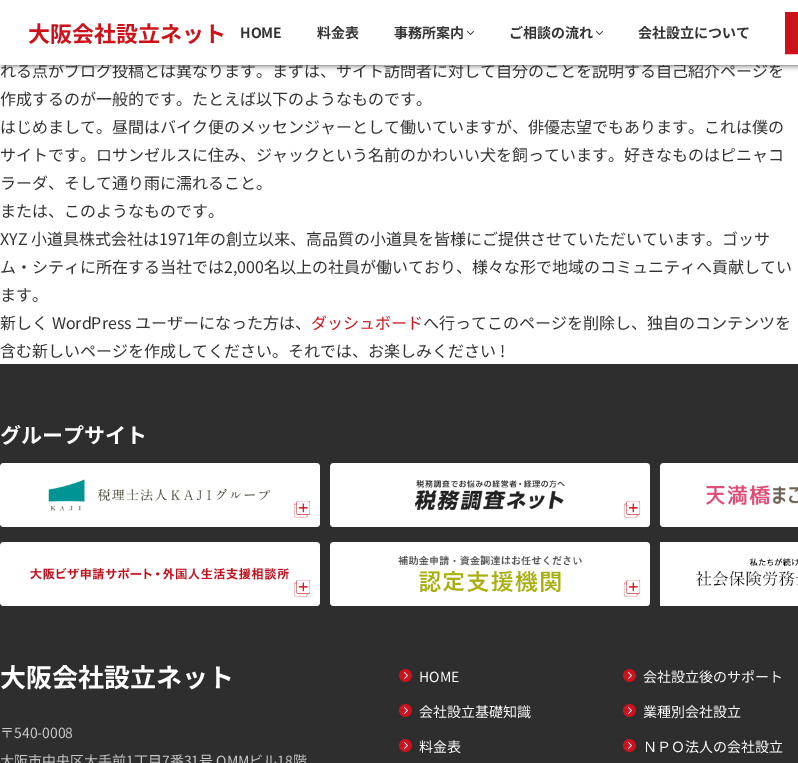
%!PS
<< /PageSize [798 763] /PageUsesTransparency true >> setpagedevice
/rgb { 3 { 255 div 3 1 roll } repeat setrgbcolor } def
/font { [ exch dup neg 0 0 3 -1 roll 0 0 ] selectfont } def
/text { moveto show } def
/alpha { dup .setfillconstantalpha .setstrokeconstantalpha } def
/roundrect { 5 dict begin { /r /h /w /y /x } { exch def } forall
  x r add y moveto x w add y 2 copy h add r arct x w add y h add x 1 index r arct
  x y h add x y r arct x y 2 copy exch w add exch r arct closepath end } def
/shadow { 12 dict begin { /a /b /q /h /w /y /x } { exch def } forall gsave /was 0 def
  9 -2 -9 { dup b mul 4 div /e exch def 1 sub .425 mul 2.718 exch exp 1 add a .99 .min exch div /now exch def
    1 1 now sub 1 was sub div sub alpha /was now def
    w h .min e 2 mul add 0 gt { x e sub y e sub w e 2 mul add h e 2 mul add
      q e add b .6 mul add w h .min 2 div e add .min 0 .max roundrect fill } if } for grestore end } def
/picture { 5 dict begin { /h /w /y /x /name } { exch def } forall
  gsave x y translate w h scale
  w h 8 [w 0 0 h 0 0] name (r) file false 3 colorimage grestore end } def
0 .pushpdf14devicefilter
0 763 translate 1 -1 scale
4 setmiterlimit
255 255 255 rgb
0 0 798 763 rectfill
51 51 51 rgb
3 0 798 65 0 3 1 shadow
46 46 46 rgb
0 364 798 399 rectfill
(img_02.rgb) 0 463 320 64 picture
(img_03.rgb) 330 463 320 64 picture
(img_04.rgb) 660 463 138 64 picture
(img_05.rgb) 0 542 320 64 picture
(img_06.rgb) 330 542 320 64 picture
(img_07.rgb) 660 542 138 64 picture
(img_08.rgb) 399 669 13 13 picture
(img_08.rgb) 399 704 13 13 picture
(img_08.rgb) 399 739 13 13 picture
(img_08.rgb) 623 669 13 13 picture
(img_08.rgb) 623 704 13 13 picture
(img_08.rgb) 623 739 13 13 picture
/NotoSansJP-Regular 16 font
51 51 51 rgb
(れる点がブログ投稿とは異なります。まずは、サイト訪問者に対して自分のことを説明する自己紹介ページを) 0 77 text
255 255 255 rgb
0 0 798 65 rectfill
206 18 27 rgb
2 setlinewidth
786 13 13 40 rectstroke
787 14 11 38 rectfill
/NotoSansJP-Bold 14 font
51 51 51 rgb
(会社設立について) 638 38 text
(img_01.rgb) 596 31 7 4 picture
(ご相談の流れ) 509 38 text
(img_01.rgb) 467 31 7 4 picture
(事務所案内) 394 38 text
(料金表) 317 38 text
(HOME) 240 38 text
/NotoSansJP-Bold 22 font
206 18 27 rgb
(大阪会社設立ネット) 28 42 text
/NotoSansJP-Regular 16 font
51 51 51 rgb
(作成するのが一般的です。たとえば以下のようなものです。) 0 105 text
(はじめまして。昼間はバイク便のメッセンジャーとして働いていますが、俳優志望でもあります。これは僕の) 0 133 text
(サイトです。ロサンゼルスに住み、ジャックという名前のかわいい犬を飼っています。好きなものはピニャコ) 0 161 text
(ラーダ、そして通り雨に濡れること。) 0 189 text
(または、このようなものです。) 0 217 text
(XYZ 小道具株式会社は1971年の創立以来、高品質の小道具を皆様にご提供させていただいています。ゴッサ) 0 245 text
(ム・シティに所在する当社では2,000名以上の社員が働いており、様々な形で地域のコミュニティへ貢献してい) 0 273 text
(ます。) 0 301 text
(新しく WordPress ユーザーになった方は、) 0 329 text
206 18 27 rgb
(ダッシュボード) 311 329 text
51 51 51 rgb
(へ行ってこのページを削除し、独自のコンテンツを) 423 329 text
(含む新しいページを作成してください。それでは、お楽しみください !) 0 357 text
/NotoSansJP-Bold 21 font
255 255 255 rgb
(グループサイト) 0 443 text
/NotoSansJP-Bold 26 font
(大阪会社設立ネット) 0 687 text
/NotoSansJP-Regular 14 font
200 200 200 rgb
(〒540-0008) 0 738 text
(大阪市中央区大手前1丁目7番31号 OMMビル18階) 0 766 text
255 255 255 rgb
(HOME) 419 682 text
(会社設立基礎知識) 419 717 text
(料金表) 419 752 text
(会社設立後のサポート) 643 682 text
(業種別会社設立) 643 717 text
(ＮＰＯ法人の会社設立) 643 752 text
.poppdf14devicefilter showpage
